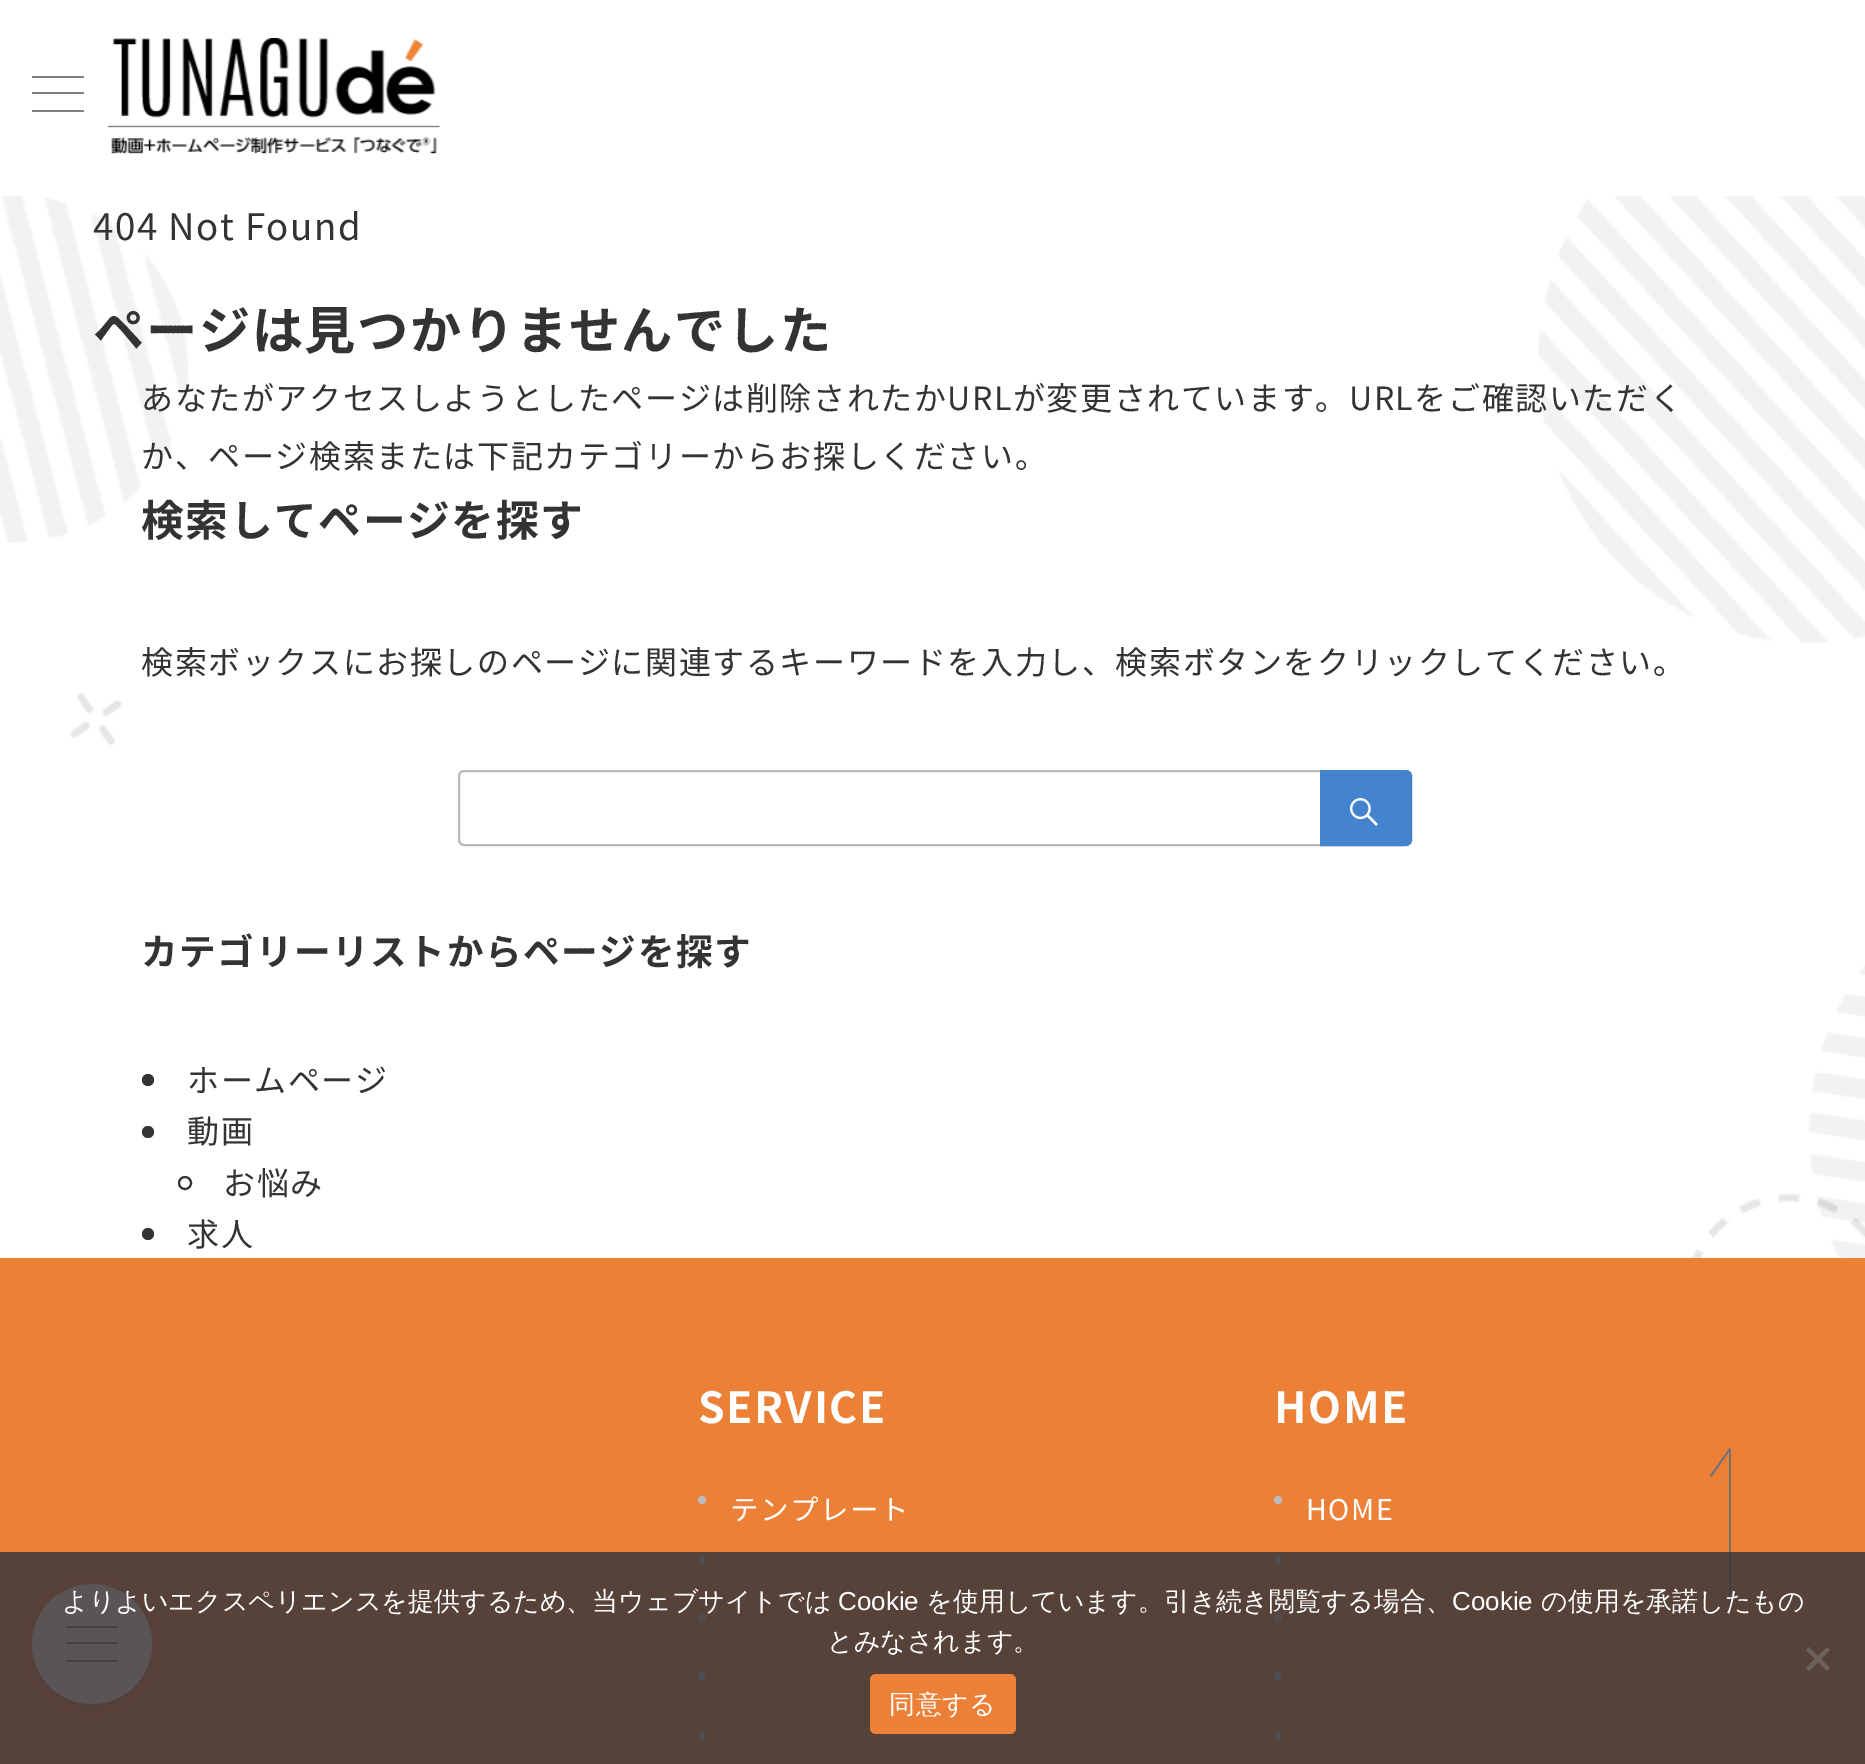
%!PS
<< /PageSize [1865 1764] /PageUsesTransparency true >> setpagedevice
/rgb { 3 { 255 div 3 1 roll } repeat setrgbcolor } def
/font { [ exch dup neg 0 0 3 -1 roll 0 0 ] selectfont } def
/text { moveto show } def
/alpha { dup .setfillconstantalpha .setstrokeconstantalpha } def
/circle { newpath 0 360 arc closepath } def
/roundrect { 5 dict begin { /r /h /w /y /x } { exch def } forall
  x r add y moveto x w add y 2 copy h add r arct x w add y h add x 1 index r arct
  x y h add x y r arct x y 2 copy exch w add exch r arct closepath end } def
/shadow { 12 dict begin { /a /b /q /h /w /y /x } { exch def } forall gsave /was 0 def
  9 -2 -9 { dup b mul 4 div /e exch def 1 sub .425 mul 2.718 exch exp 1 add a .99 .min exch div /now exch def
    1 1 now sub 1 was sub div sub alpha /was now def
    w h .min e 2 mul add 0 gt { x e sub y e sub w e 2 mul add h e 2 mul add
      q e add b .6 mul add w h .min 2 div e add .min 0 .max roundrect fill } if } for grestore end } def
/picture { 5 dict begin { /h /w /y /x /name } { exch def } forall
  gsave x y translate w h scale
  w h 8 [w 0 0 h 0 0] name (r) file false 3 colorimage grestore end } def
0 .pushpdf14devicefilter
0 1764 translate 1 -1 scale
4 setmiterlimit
255 255 255 rgb
0 0 1865 1764 rectfill
(img_01.rgb) 0 196 1865 1062 picture
128 128 128 rgb
32 76 52 2 1 roundrect fill
32 92 52 2 1 roundrect fill
32 110 52 2 1 roundrect fill
(img_02.rgb) 108 38 332 116 picture
184 188 192 rgb
2 setlinewidth
459 771 948 74 5 roundrect stroke
68 132 206 rgb
1321 771 moveto 85 0 rlineto 3 0 5 2 5 5 rcurveto 0 64 rlineto 0 3 -2 5 -5 5 rcurveto -85 0 rlineto closepath gsave fill grestore
stroke
(img_03.rgb) 1350 798 28 28 picture
51 51 51 rgb
148 1080 6 circle fill
148 1132 6 circle fill
185 1183 6 circle stroke
148 1234 6 circle fill
236 128 55 rgb
0 1258 1865 506 rectfill
184 188 192 rgb
702 1500 4 circle fill
702 1560 4 circle fill
702 1618 4 circle fill
702 1676 4 circle fill
702 1736 4 circle fill
1278 1500 4 circle fill
1278 1560 4 circle fill
1278 1618 4 circle fill
1278 1676 4 circle fill
1278 1736 4 circle fill
115 115 115 rgb
1729 1449 2 150 rectfill
1731 1449 moveto -19.5 28 rlineto -1.5 -1.5 rlineto 19.5 -27.5 rlineto closepath fill
0 0 0 rgb
30 1584 124 124 62 3 0.08 shadow
255 221 197 rgb
92 1644 60 circle fill
128 128 128 rgb
66 1626 52 2 1 roundrect fill
66 1642 52 2 1 roundrect fill
66 1660 52 2 1 roundrect fill
0.8 alpha
50 50 58 rgb
0 1552 1865 212 rectfill
1 alpha
108 97 93 rgb
1827 1647 moveto 3 3 rlineto -21 21 rlineto -3 -3 rlineto closepath fill
1806 1650 moveto 3 -3 rlineto 21 21 rlineto -3 3 rlineto closepath fill
236 128 55 rgb
870 1674 146 60 6 roundrect fill
/NotoSansJP-Regular 36.6 font
51 51 51 rgb
93 240 moveto 1.5 0 (404 Not Found) ashow
/NotoSansJP-Bold 51.25 font
93 349 moveto 1.6 0 (ページは見つかりませんでした) ashow
/NotoSansJP-Regular 32 font
141 410 moveto 1.6 0 (あなたがアクセスしようとしたページは削除されたかURLが変更されています。URLをご確認いただく) ashow
141 468 moveto 1.6 0 (か、ページ検索または下記カテゴリーからお探しください。) ashow
/NotoSansJP-Bold 42.75 font
141 536 moveto 1.6 0 (検索してページを探す) ashow
/NotoSansJP-Regular 32 font
141 674 moveto 1.6 0 (検索ボックスにお探しのページに関連するキーワードを入力し、検索ボタンをクリックしてください。) ashow
/NotoSansJP-Bold 36.6 font
141 965 moveto 1.6 0 (カテゴリーリストからページを探す) ashow
/NotoSansJP-Regular 32 font
187 1092 moveto 1.6 0 (ホームページ) ashow
187 1143 moveto 1.6 0 (動画) ashow
223 1195 moveto 1.6 0 (お悩み) ashow
187 1246 moveto 1.6 0 (求人) ashow
/NotoSansJP-Bold 42.75 font
255 255 255 rgb
698 1423 moveto 1.75 0 (SERVICE) ashow
/NotoSansJP-Regular 28.5 font
730 1520 moveto 1.6 0 (テンプレート) ashow
/NotoSansJP-Bold 42.75 font
1274 1423 moveto 1.75 0 (HOME) ashow
/NotoSansJP-Regular 28.5 font
1306 1520 moveto 1.6 0 (HOME) ashow
/WenQuanYiZenHei-Medium 26 font
(よりよいエクスペリエンスを提供するため、当ウェブサイトでは) 62 1610 text
/LiberationSans-Regular 26 font
(Cookie) 838 1610 text
/WenQuanYiZenHei-Medium 26 font
(を使用しています。引き続き閲覧する場合、) 926 1610 text
/LiberationSans-Regular 26 font
(Cookie) 1452 1610 text
/WenQuanYiZenHei-Medium 26 font
(の使用を承諾したもの) 1541 1610 text
(とみなされます。) 827 1650 text
889 1713 moveto 0.5 0 (同意する) ashow
.poppdf14devicefilter showpage
